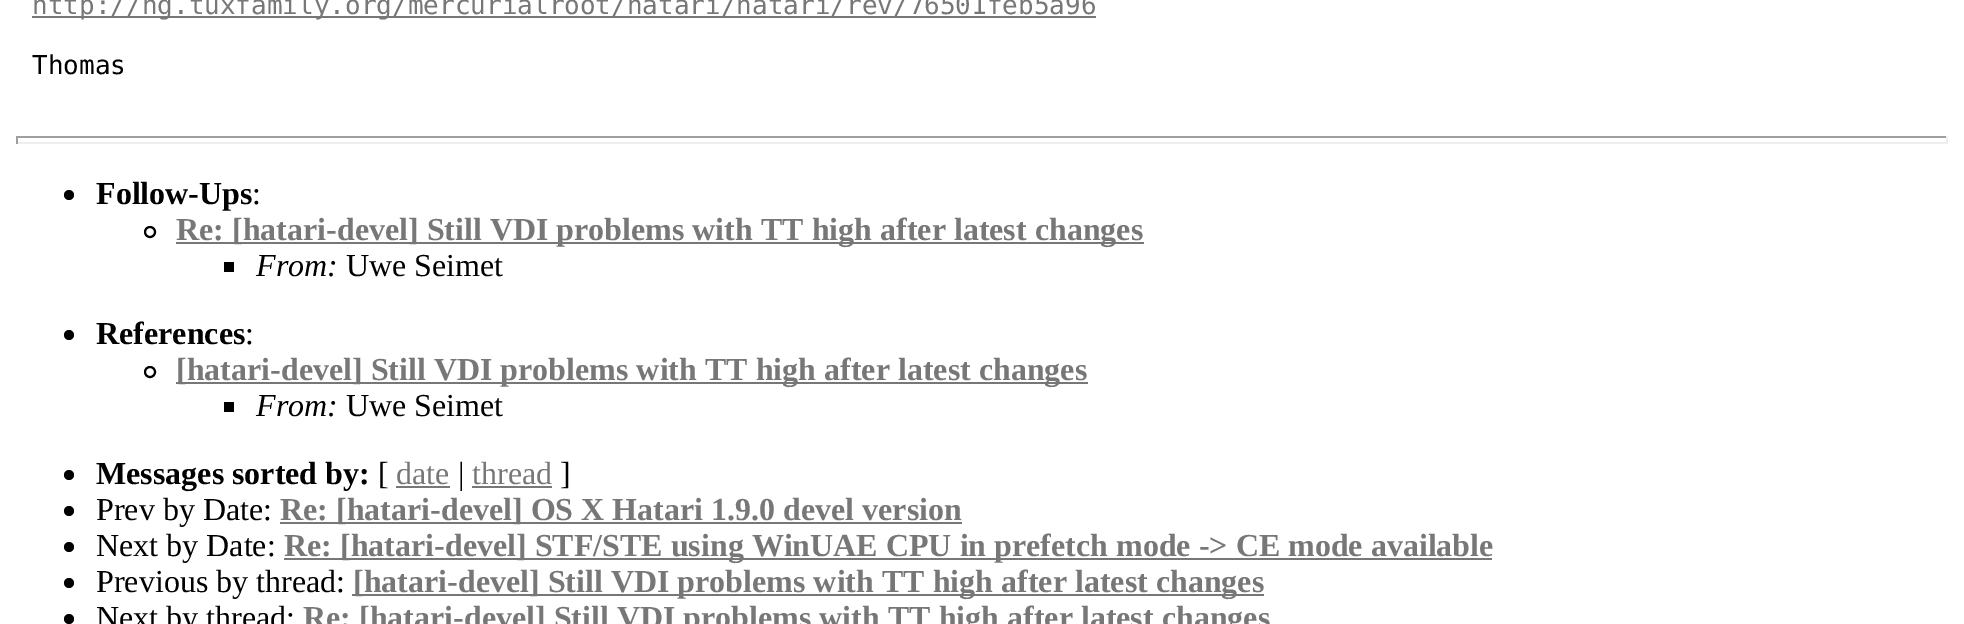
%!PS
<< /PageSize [1964 624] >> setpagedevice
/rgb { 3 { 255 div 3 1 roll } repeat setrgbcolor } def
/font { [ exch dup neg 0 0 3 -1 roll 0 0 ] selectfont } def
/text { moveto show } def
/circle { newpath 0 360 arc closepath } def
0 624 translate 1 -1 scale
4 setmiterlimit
255 255 255 rgb
0 0 1964 624 rectfill
119 119 119 rgb
32 16 1064 2 rectfill
159 159 159 rgb
16 136 1932 2 rectfill
238 238 238 rgb
1946 136 2 8 rectfill
16 142 1932 2 rectfill
159 159 159 rgb
16 136 2 8 rectfill
0 0 0 rgb
69 195 5 circle fill
2 setlinewidth
150 232 5 circle stroke
119 119 119 rgb
176 242 968 2 rectfill
0 0 0 rgb
224 262 10 10 rectfill
69 335 5 circle fill
150 372 5 circle stroke
119 119 119 rgb
176 382 912 2 rectfill
0 0 0 rgb
224 402 10 10 rectfill
69 475 5 circle fill
119 119 119 rgb
396 486 54 2 rectfill
472 486 80 2 rectfill
0 0 0 rgb
69 511 5 circle fill
119 119 119 rgb
280 522 682 2 rectfill
0 0 0 rgb
69 547 5 circle fill
119 119 119 rgb
284 558 1208 2 rectfill
0 0 0 rgb
69 583 5 circle fill
119 119 119 rgb
352 594 912 2 rectfill
0 0 0 rgb
69 619 5 circle fill
/DejaVuSansMono-Regular 26 font
119 119 119 rgb
(http://hg.tuxfamily.org/mercurialroot/hatari/hatari/rev/76501feb5a96) 32 14 text
0 0 0 rgb
(Thomas) 32 74 text
/LiberationSerif-Bold 32 font
(Follow-Ups) 96 204 text
/LiberationSerif-Regular 32 font
(:) 252 204 text
/LiberationSerif-Bold 32 font
119 119 119 rgb
(Re: [hatari-devel] Still VDI problems with TT high after latest changes) 176 240 text
/LiberationSerif-Italic 32 font
0 0 0 rgb
(From:) 256 276 text
/LiberationSerif-Regular 32 font
(Uwe Seimet) 346 276 text
/LiberationSerif-Bold 32 font
(References) 96 344 text
/LiberationSerif-Regular 32 font
(:) 245 344 text
/LiberationSerif-Bold 32 font
119 119 119 rgb
([hatari-devel] Still VDI problems with TT high after latest changes) 176 380 text
/LiberationSerif-Italic 32 font
0 0 0 rgb
(From:) 256 416 text
/LiberationSerif-Regular 32 font
(Uwe Seimet) 346 416 text
/LiberationSerif-Bold 32 font
(Messages sorted by:) 96 484 text
/LiberationSerif-Regular 32 font
([) 378 484 text
119 119 119 rgb
(date) 396 484 text
0 0 0 rgb
(|) 458 484 text
119 119 119 rgb
(thread) 472 484 text
0 0 0 rgb
(]) 560 484 text
(Prev by Date:) 96 520 text
/LiberationSerif-Bold 32 font
119 119 119 rgb
(Re: [hatari-devel] OS X Hatari 1.9.0 devel version) 280 520 text
/LiberationSerif-Regular 32 font
0 0 0 rgb
(Next by Date:) 96 556 text
/LiberationSerif-Bold 32 font
119 119 119 rgb
(Re: [hatari-devel] STF/STE using WinUAE CPU in prefetch mode -> CE mode available) 284 556 text
/LiberationSerif-Regular 32 font
0 0 0 rgb
(Previous by thread:) 96 592 text
/LiberationSerif-Bold 32 font
119 119 119 rgb
([hatari-devel] Still VDI problems with TT high after latest changes) 353 592 text
/LiberationSerif-Regular 32 font
0 0 0 rgb
(Next by thread:) 96 628 text
/LiberationSerif-Bold 32 font
119 119 119 rgb
(Re: [hatari-devel] Still VDI problems with TT high after latest changes) 303 628 text
showpage
